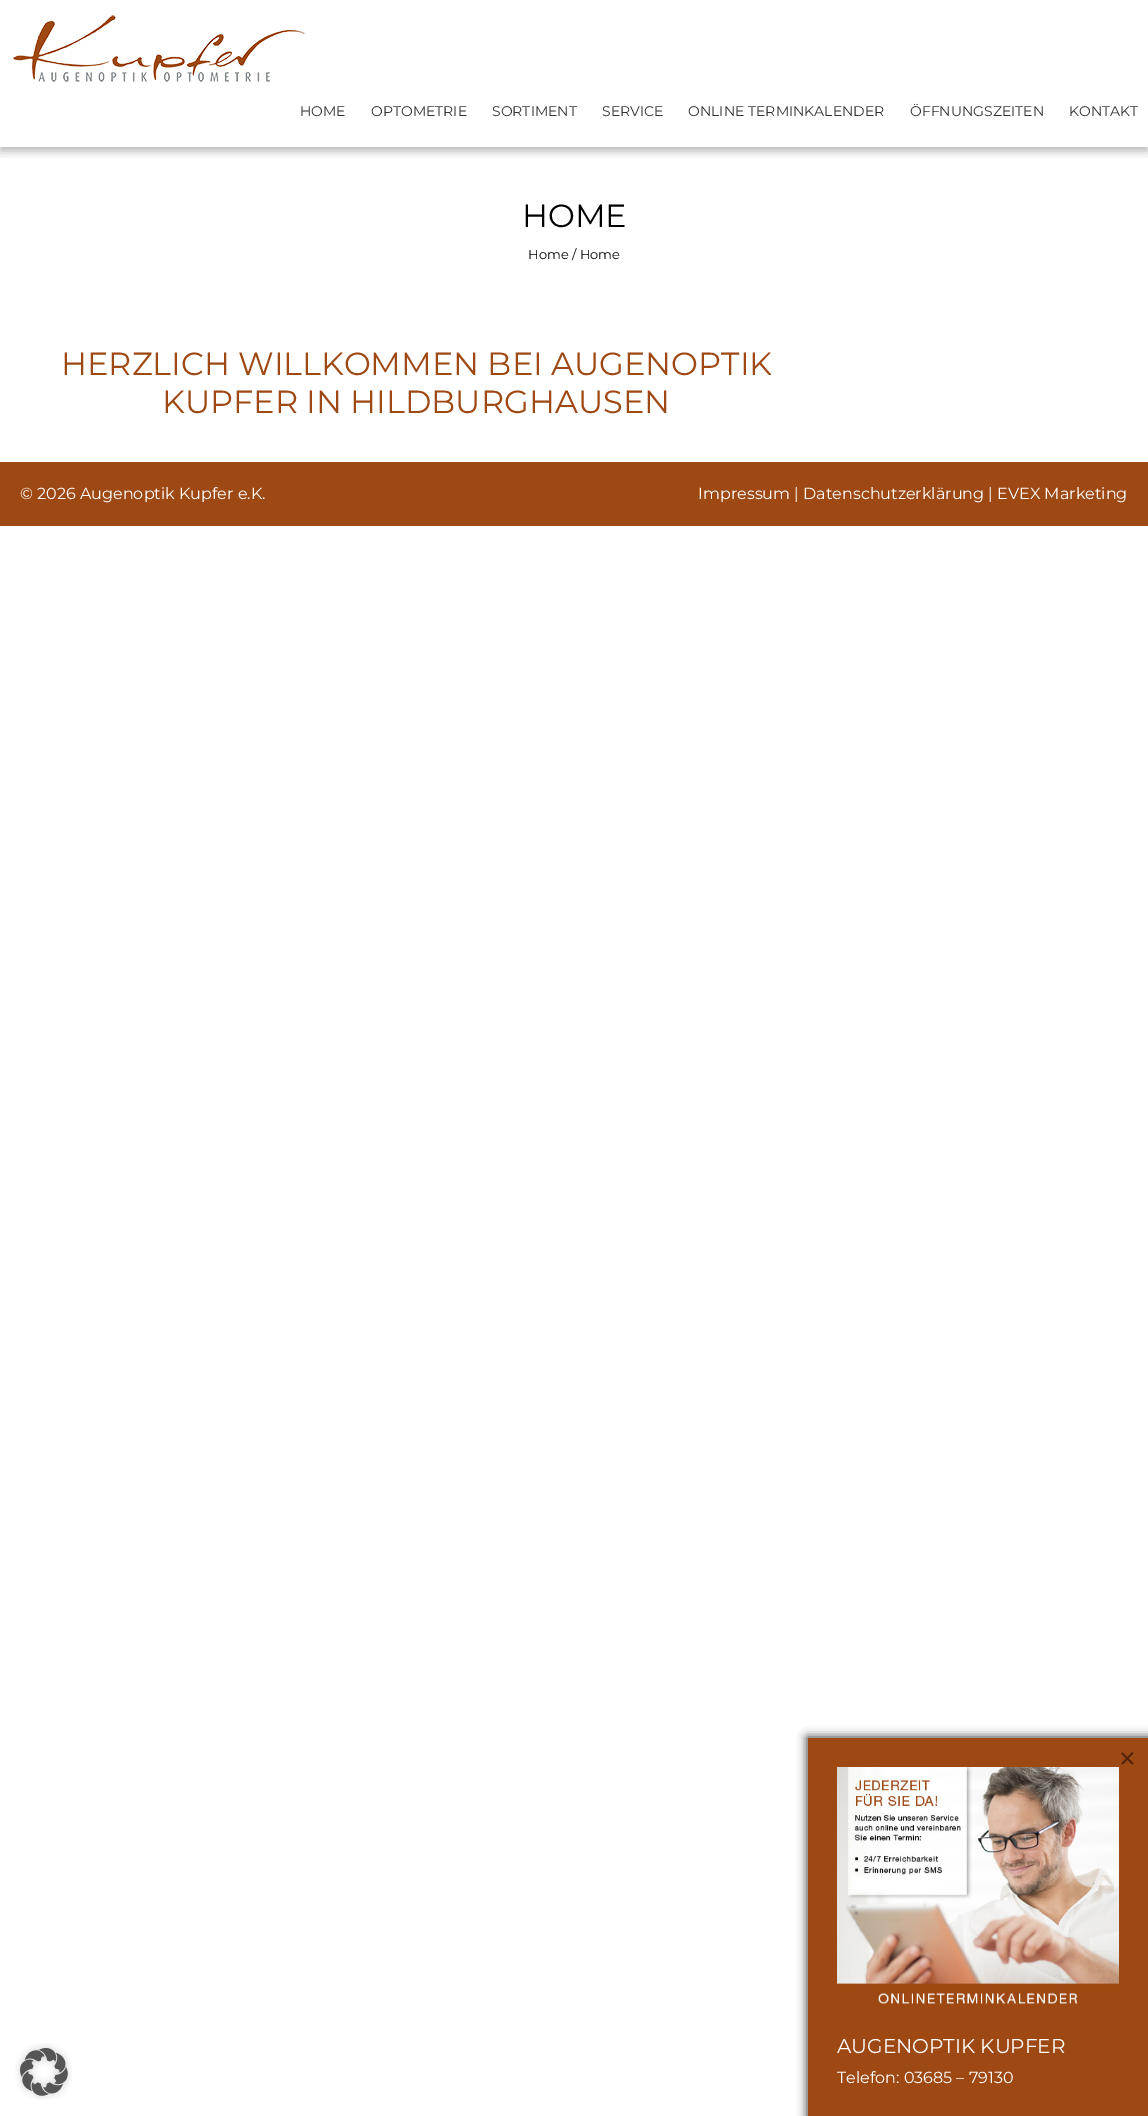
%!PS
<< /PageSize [1148 2116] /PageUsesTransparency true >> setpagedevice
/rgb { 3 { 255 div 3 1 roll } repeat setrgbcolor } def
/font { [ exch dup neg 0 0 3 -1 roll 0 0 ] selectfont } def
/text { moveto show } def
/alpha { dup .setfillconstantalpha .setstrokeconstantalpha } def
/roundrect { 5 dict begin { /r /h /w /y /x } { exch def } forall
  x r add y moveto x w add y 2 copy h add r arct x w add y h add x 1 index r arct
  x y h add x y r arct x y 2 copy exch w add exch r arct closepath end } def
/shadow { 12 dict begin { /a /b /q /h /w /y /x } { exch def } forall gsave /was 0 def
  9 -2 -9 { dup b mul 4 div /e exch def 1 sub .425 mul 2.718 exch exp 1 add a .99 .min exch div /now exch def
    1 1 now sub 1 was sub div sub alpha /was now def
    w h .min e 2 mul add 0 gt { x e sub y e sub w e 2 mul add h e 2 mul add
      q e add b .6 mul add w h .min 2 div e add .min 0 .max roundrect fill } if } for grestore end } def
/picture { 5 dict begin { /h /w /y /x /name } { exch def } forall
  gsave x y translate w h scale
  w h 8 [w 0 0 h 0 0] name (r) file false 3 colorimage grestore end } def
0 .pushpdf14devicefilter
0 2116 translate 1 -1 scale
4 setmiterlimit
255 255 255 rgb
0 0 1148 2116 rectfill
gsave
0 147 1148 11 rectclip
0 0 0 rgb
0 4 1148 147 0 5 0.3 shadow
grestore
(img_01.rgb) 13 15 293 67 picture
158 72 19 rgb
0 462 1148 64 rectfill
(img_02.rgb) 15 2043 57 57 picture
51 51 51 rgb
807 1737 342 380 0 5 1 shadow
158 72 19 rgb
808 1738 340 378 rectfill
(img_03.rgb) 837 1767 282 238 picture
/Montserrat-Regular 14 font
51 51 51 rgb
(HOME) 300 116 text
(OPTOMETRIE) 371 116 text
(SORTIMENT) 492 116 text
(SERVICE) 602 116 text
(ONLINE TERMINKALENDER) 688 116 text
(ÖFFNUNGSZEITEN) 910 116 text
(KONTAKT) 1069 116 text
/Montserrat-Regular 32 font
0 0 0 rgb
(HOME) 522 227 text
/Montserrat-Regular 13 font
(Home / Home) 528 259 text
/Montserrat-Regular 32 font
158 72 19 rgb
(HERZLICH WILLKOMMEN BEI AUGENOPTIK) 61 375 text
(KUPFER IN HILDBURGHAUSEN) 162 413 text
/Montserrat-Regular 16 font
255 255 255 rgb
(© 2026 Augenoptik Kupfer e.K.) 20 499 text
(Impressum | Datenschutzerklärung | EVEX Marketing) 698 499 text
/Montserrat-Regular 36 font
79 36 10 rgb
(×) 1117 1771 text
/Montserrat-Regular 20 font
255 255 255 rgb
(AUGENOPTIK KUPFER) 837 2053 text
/Montserrat-Regular 16 font
(Telefon: 03685 – 79130) 837 2083 text
.poppdf14devicefilter showpage
